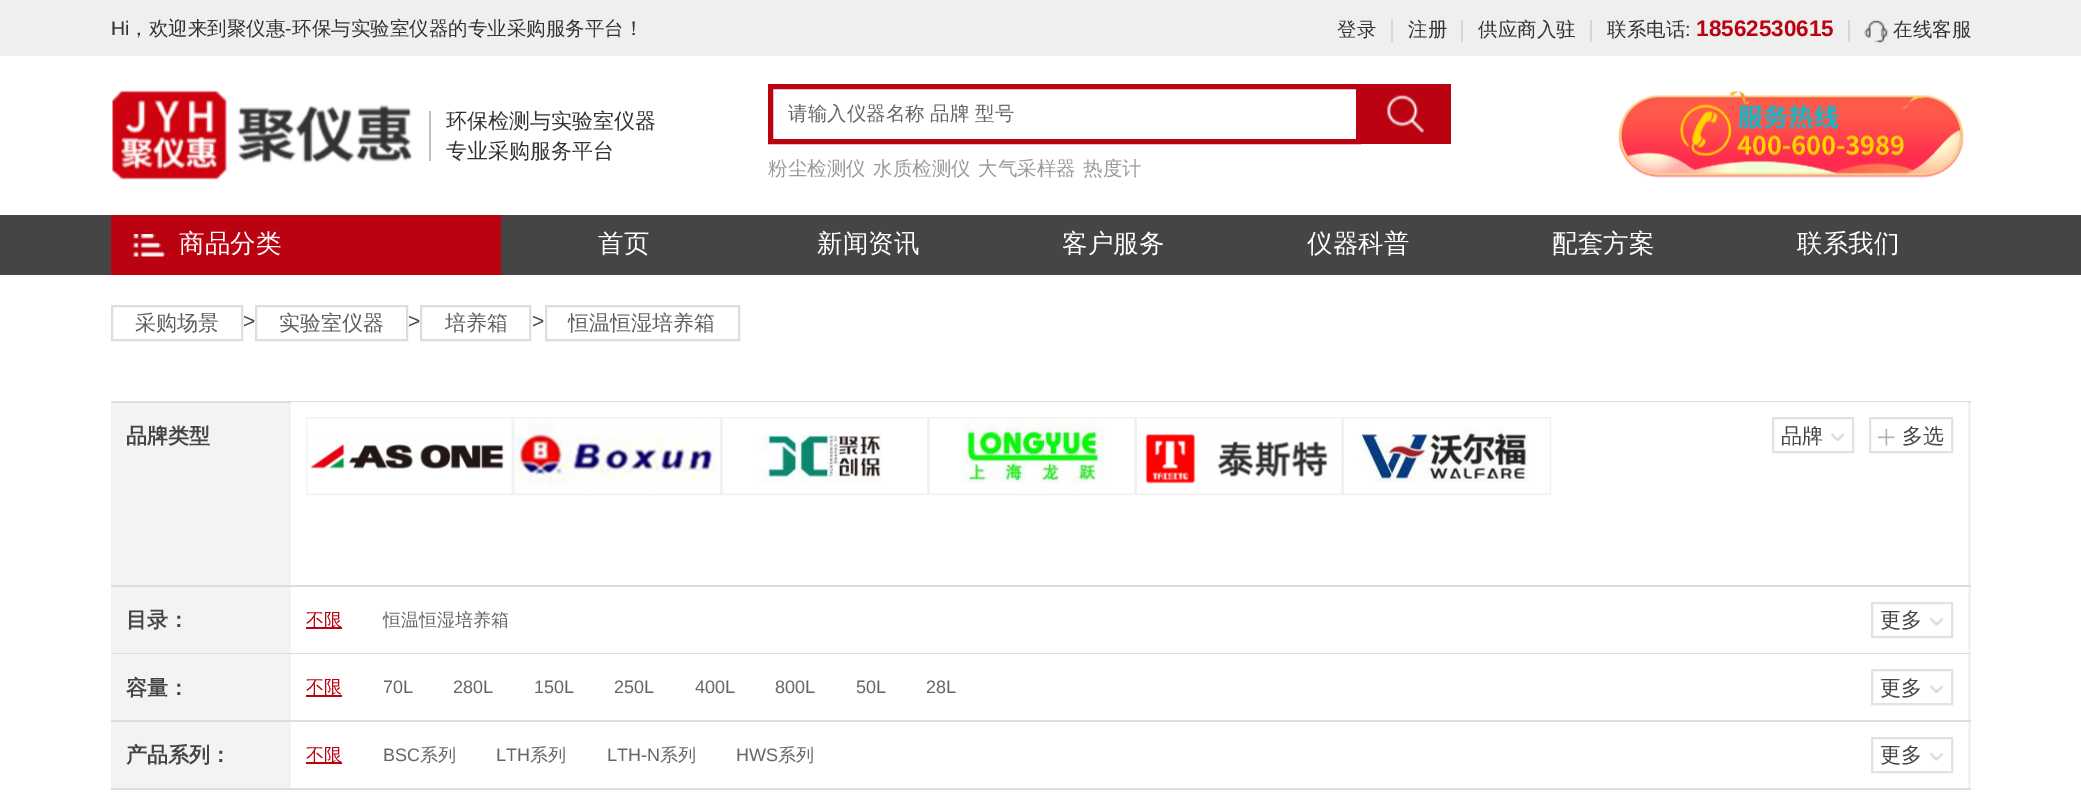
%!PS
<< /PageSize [2081 799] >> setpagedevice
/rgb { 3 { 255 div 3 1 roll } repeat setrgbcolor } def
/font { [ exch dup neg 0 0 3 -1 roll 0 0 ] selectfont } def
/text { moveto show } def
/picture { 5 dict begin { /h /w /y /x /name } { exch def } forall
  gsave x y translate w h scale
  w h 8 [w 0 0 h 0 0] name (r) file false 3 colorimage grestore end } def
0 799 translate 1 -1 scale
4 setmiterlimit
255 255 255 rgb
0 0 2081 799 rectfill
239 239 239 rgb
0 0 2081 56 rectfill
214 214 214 rgb
1391 20 2 22 rectfill
1461 20 2 22 rectfill
1590 20 2 22 rectfill
1848 20 2 22 rectfill
(img_01.rgb) 1864 20 24 23 picture
(img_02.rgb) 112 90 300 90 picture
191 191 191 rgb
429 111 2 50 rectfill
187 2 17 rgb
5 setlinewidth
770.5 86.5 588 55 rectstroke
1361 84 90 60 rectfill
(img_03.rgb) 1387 95 37 38 picture
(img_04.rgb) 1618 90 346 88 picture
69 69 69 rgb
0 215 2081 60 rectfill
187 2 17 rgb
111 215 390 60 rectfill
(img_05.rgb) 133 234 32 23 picture
221 221 221 rgb
2 setlinewidth
112 306 130 34 rectstroke
256 306 151 34 rectstroke
421 306 109 34 rectstroke
546 306 193 34 rectstroke
243 243 243 rgb
111 403 1860 182 rectfill
221 221 221 rgb
111 401 1860 2 rectfill
111 585 1860 2 rectfill
255 255 255 rgb
291 402 1677 183 rectfill
242 242 242 rgb
307 418 205 76 rectstroke
(img_06.rgb) 307 418 205 76 picture
514 418 207 76 rectstroke
(img_07.rgb) 514 418 206 76 picture
723 418 205 76 rectstroke
(img_08.rgb) 723 418 204 76 picture
930 418 205 76 rectstroke
(img_09.rgb) 930 418 204 76 picture
1137 418 205 76 rectstroke
(img_10.rgb) 1137 418 204 76 picture
1344 418 206 76 rectstroke
(img_11.rgb) 1344 418 206 76 picture
226 226 226 rgb
1773 418 80 34 rectstroke
(img_12.rgb) 1830 433 15 8 picture
1870 418 82 34 rectstroke
(img_13.rgb) 1878 429 17 17 picture
243 243 243 rgb
111 587 1860 66 rectfill
221 221 221 rgb
111 653 1860 1 rectfill
255 255 255 rgb
291 587 1677 66 rectfill
187 2 17 rgb
306 627 36 2 rectfill
226 226 226 rgb
1872 603 80 34 rectstroke
(img_14.rgb) 1929 618 15 8 picture
243 243 243 rgb
111 654 1860 66 rectfill
221 221 221 rgb
111 720 1860 2 rectfill
255 255 255 rgb
291 654 1677 66 rectfill
187 2 17 rgb
306 695 36 2 rectfill
226 226 226 rgb
1872 670 80 34 rectstroke
(img_12.rgb) 1929 685 15 8 picture
243 243 243 rgb
111 722 1860 66 rectfill
221 221 221 rgb
111 788 1860 2 rectfill
255 255 255 rgb
291 722 1677 66 rectfill
187 2 17 rgb
306 762 36 2 rectfill
226 226 226 rgb
1872 738 80 34 rectstroke
(img_14.rgb) 1929 753 15 8 picture
/LiberationSans-Regular 19.5 font
51 51 51 rgb
(Hi) 111 35 text
/WenQuanYiZenHei-Medium 19.5 font
(，欢迎来到聚仪惠) 129 35 text
/LiberationSans-Regular 19.5 font
(-) 285 35 text
/WenQuanYiZenHei-Medium 19.5 font
(环保与实验室仪器的专业采购服务平台！) 292 35 text
(登录) 1337 36 text
(注册) 1408 36 text
(供应商入驻) 1478 36 text
(联系电话) 1607 36 text
/LiberationSans-Regular 19.5 font
(:) 1685 36 text
/LiberationSans-Bold 22.5 font
187 2 17 rgb
(18562530615) 1696 36 text
/WenQuanYiZenHei-Medium 19.5 font
51 51 51 rgb
(在线客服) 1893 36 text
/WenQuanYiZenHei-Medium 21 font
(环保检测与实验室仪器) 446 128 text
(专业采购服务平台) 446 158 text
/WenQuanYiZenHei-Medium 19.5 font
102 102 102 rgb
(请输入仪器名称 品牌 型号) 788 120 text
153 153 153 rgb
(粉尘检测仪) 768 175 text
(水质检测仪) 873 175 text
(大气采样器) 978 175 text
(热度计) 1083 175 text
/WenQuanYiZenHei-Medium 25.5 font
255 255 255 rgb
(商品分类) 179 252 text
(首页) 598 252 text
(新闻资讯) 817 252 text
(客户服务) 1062 252 text
(仪器科普) 1307 252 text
(配套方案) 1552 252 text
(联系我们) 1797 252 text
/WenQuanYiZenHei-Medium 21 font
94 94 94 rgb
(采购场景) 135 330 text
/LiberationSans-Regular 21 font
69 69 69 rgb
(>) 243 328 text
/WenQuanYiZenHei-Medium 21 font
94 94 94 rgb
(实验室仪器) 279 330 text
/LiberationSans-Regular 21 font
69 69 69 rgb
(>) 408 328 text
/WenQuanYiZenHei-Medium 21 font
94 94 94 rgb
(培养箱) 445 330 text
/LiberationSans-Regular 21 font
69 69 69 rgb
(>) 532 328 text
/WenQuanYiZenHei-Medium 21 font
94 94 94 rgb
(恒温恒湿培养箱) 568 330 text
/WenQuanYiZenHei-Bold 21 font
69 69 69 rgb
(品牌类型) 126 443 text
/WenQuanYiZenHei-Medium 21 font
(品牌) 1781 443 text
(多选) 1902 443 text
/WenQuanYiZenHei-Bold 21 font
(目录：) 126 627 text
/WenQuanYiZenHei-Medium 18 font
187 2 17 rgb
(不限) 306 626 text
102 102 102 rgb
(恒温恒湿培养箱) 383 626 text
/WenQuanYiZenHei-Medium 21 font
69 69 69 rgb
(更多) 1880 627 text
/WenQuanYiZenHei-Bold 21 font
(容量：) 126 695 text
/WenQuanYiZenHei-Medium 18 font
187 2 17 rgb
(不限) 306 693 text
/LiberationSans-Regular 18 font
102 102 102 rgb
(70L) 383 693 text
(280L) 453 693 text
(150L) 534 693 text
(250L) 614 693 text
(400L) 695 693 text
(800L) 775 693 text
(50L) 856 693 text
(28L) 926 693 text
/WenQuanYiZenHei-Medium 21 font
69 69 69 rgb
(更多) 1880 695 text
/WenQuanYiZenHei-Bold 21 font
(产品系列：) 126 762 text
/WenQuanYiZenHei-Medium 18 font
187 2 17 rgb
(不限) 306 761 text
/LiberationSans-Regular 18 font
102 102 102 rgb
(BSC) 383 761 text
/WenQuanYiZenHei-Medium 18 font
(系列) 420 761 text
/LiberationSans-Regular 18 font
(LTH) 496 761 text
/WenQuanYiZenHei-Medium 18 font
(系列) 530 761 text
/LiberationSans-Regular 18 font
(LTH-N) 607 761 text
/WenQuanYiZenHei-Medium 18 font
(系列) 660 761 text
/LiberationSans-Regular 18 font
(HWS) 736 761 text
/WenQuanYiZenHei-Medium 18 font
(系列) 778 761 text
/WenQuanYiZenHei-Medium 21 font
69 69 69 rgb
(更多) 1880 762 text
showpage
